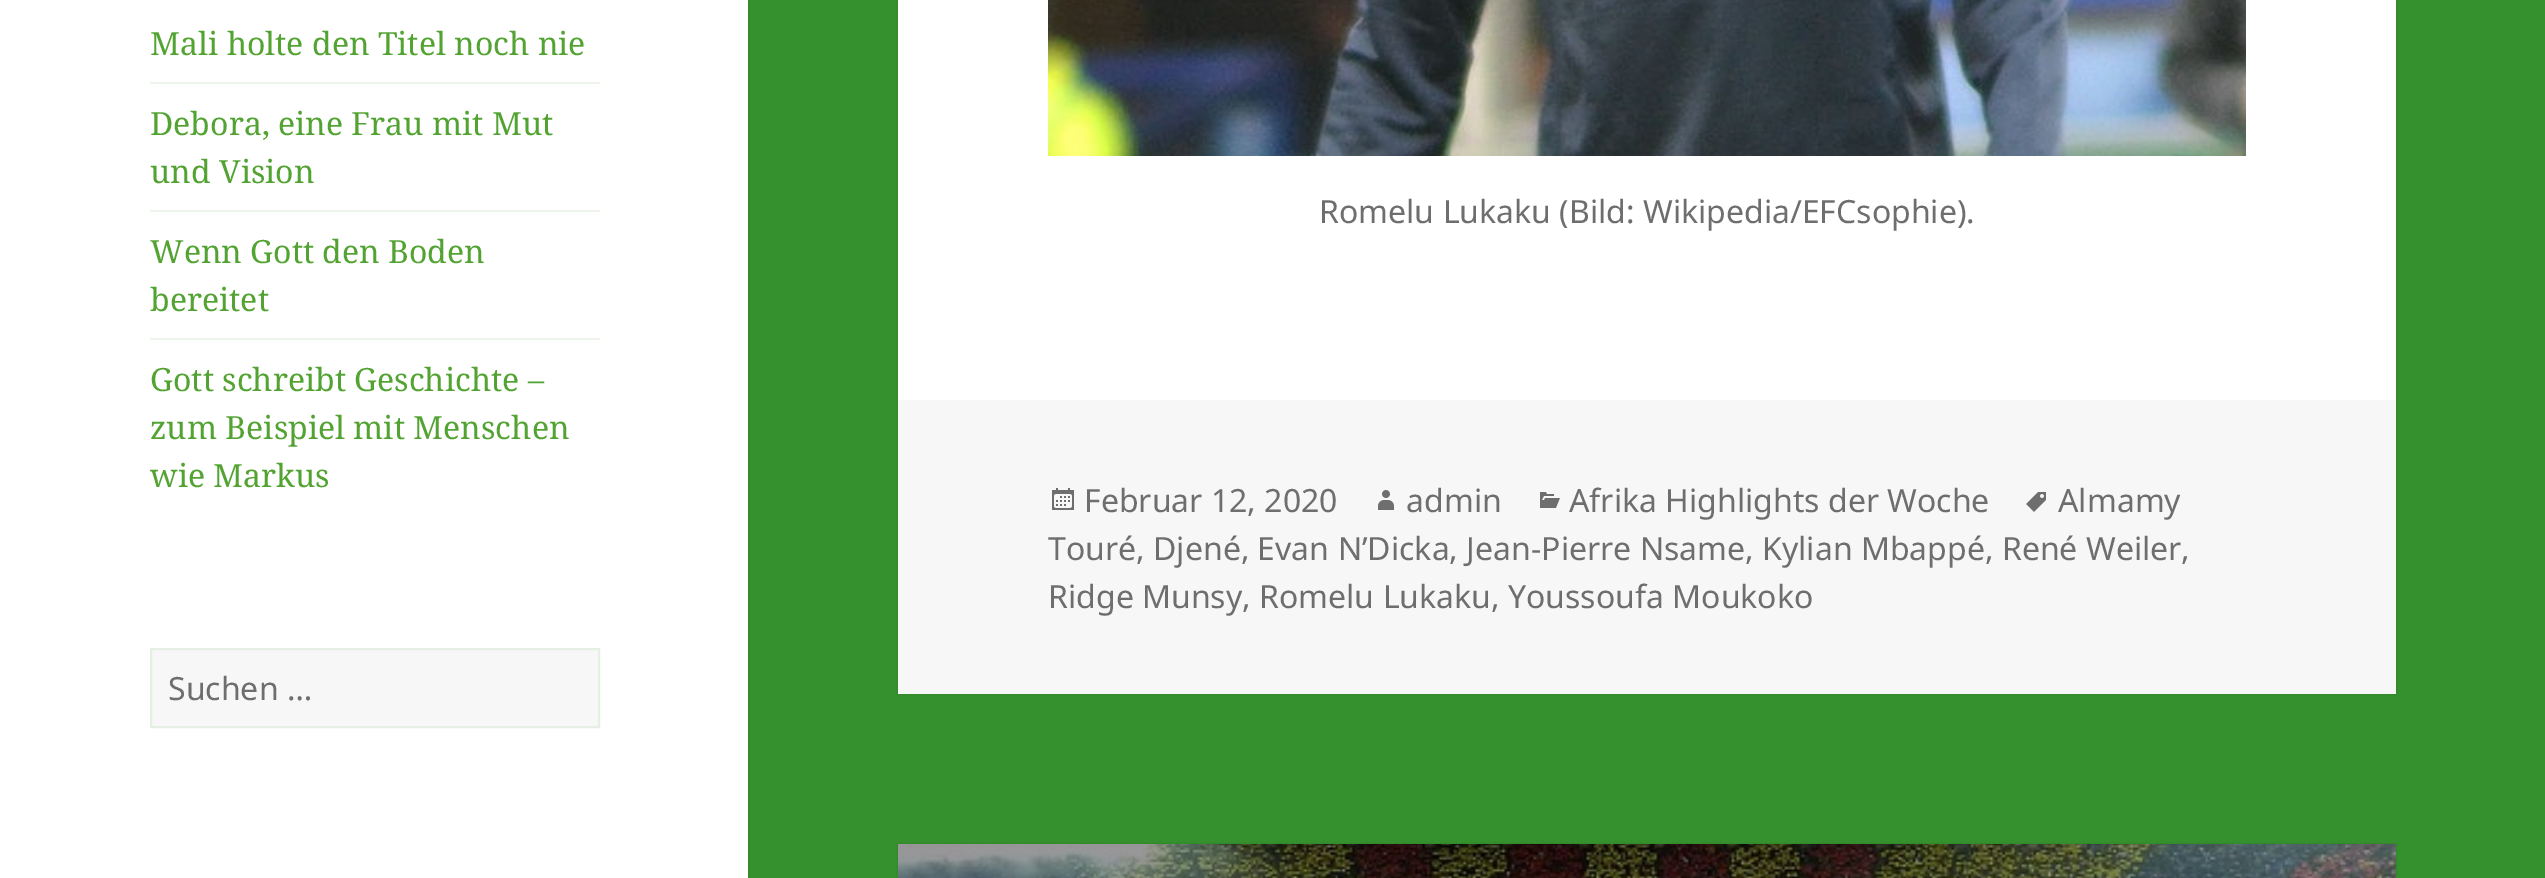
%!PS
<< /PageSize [2545 878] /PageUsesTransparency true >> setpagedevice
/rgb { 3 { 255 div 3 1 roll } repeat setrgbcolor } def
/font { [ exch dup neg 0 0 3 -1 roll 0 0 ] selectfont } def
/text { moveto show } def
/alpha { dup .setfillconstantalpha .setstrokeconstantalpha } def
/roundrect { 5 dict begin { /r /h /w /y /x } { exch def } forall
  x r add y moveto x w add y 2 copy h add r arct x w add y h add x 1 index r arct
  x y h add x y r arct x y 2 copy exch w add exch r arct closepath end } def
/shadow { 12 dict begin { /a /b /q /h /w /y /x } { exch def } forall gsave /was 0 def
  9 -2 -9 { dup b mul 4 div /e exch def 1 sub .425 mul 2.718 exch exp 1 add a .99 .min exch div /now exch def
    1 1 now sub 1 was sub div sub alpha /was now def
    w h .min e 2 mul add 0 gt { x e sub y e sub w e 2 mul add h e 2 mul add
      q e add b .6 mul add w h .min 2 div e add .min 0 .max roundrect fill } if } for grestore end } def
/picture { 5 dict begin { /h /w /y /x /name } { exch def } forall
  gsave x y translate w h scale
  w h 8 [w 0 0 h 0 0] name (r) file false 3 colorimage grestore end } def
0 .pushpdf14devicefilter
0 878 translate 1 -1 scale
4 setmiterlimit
53 145 45 rgb
0 0 2545 878 rectfill
0 0 0 rgb
0 0 748 878 0 1 0.15 shadow
255 255 255 rgb
0 0 748 878 rectfill
238 246 235 rgb
150 82 450 2 rectfill
150 210 450 2 rectfill
150 338 450 2 rectfill
247 247 247 rgb
151 649 moveto 448 0 rlineto 0 78 rlineto -448 0 rlineto closepath gsave fill grestore
230 239 227 rgb
2 setlinewidth
stroke
0 0 0 rgb
898 -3 1498 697 0 1 0.15 shadow
255 255 255 rgb
898 0 1498 400 rectfill
(img_01.rgb) 1048 0 1198 156 picture
247 247 247 rgb
898 400 1498 294 rectfill
(img_02.rgb) 2026 492 20 20 picture
(img_03.rgb) 1052 488 22 22 picture
(img_04.rgb) 1378 490 16 20 picture
(img_05.rgb) 1540 492 20 16 picture
0 0 0 rgb
898 844 1498 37 0 1 0.15 shadow
(img_06.rgb) 898 844 1498 34 picture
/NotoSerif-Regular 32 font
82 163 50 rgb
(Mali holte den Titel noch nie) 150 55 text
(Debora, eine Frau mit Mut) 150 135 text
(und Vision) 150 183 text
(Wenn Gott den Boden) 150 263 text
(bereitet) 150 311 text
(Gott schreibt Geschichte –) 150 391 text
(zum Beispiel mit Menschen) 150 439 text
(wie Markus) 150 487 text
/NotoSans-Regular 32 font
110 110 110 rgb
(Suchen …) 168 700 text
(Romelu Lukaku \(Bild: Wikipedia/EFCsophie\).) 1319 223 text
(Almamy) 2058 512 text
(Touré, Djené, Evan N’Dicka, Jean-Pierre Nsame, Kylian Mbappé, René Weiler,) 1048 560 text
(Ridge Munsy, Romelu Lukaku, Youssoufa Moukoko) 1048 608 text
(Februar 12, 2020) 1084 512 text
(admin) 1406 512 text
(Afrika Highlights der Woche) 1569 512 text
.poppdf14devicefilter showpage
